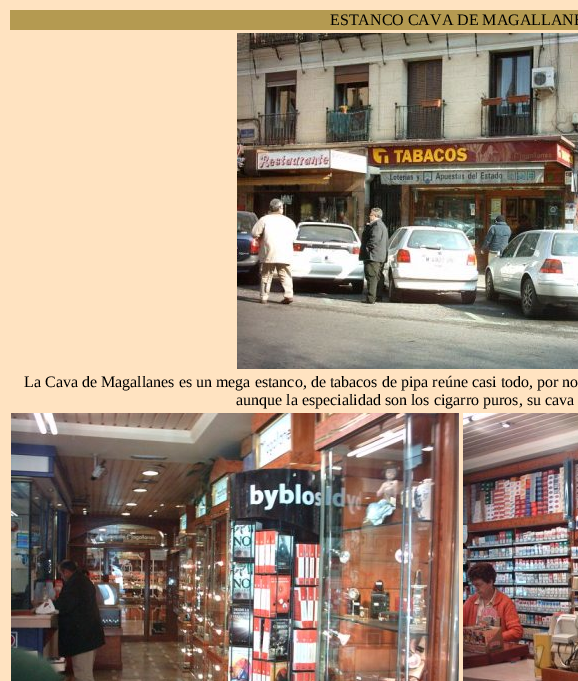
%!PS
<< /PageSize [578 681] >> setpagedevice
/rgb { 3 { 255 div 3 1 roll } repeat setrgbcolor } def
/font { [ exch dup neg 0 0 3 -1 roll 0 0 ] selectfont } def
/text { moveto show } def
/picture { 5 dict begin { /h /w /y /x /name } { exch def } forall
  gsave x y translate w h scale
  w h 8 [w 0 0 h 0 0] name (r) file false 3 colorimage grestore end } def
0 681 translate 1 -1 scale
4 setmiterlimit
255 227 193 rgb
0 0 578 681 rectfill
180 154 81 rgb
10 10 568 20 rectfill
(img_01.rgb) 237 33 341 336 picture
(img_02.rgb) 11 413 448 268 picture
(img_03.rgb) 463 413 115 268 picture
/LiberationSerif-Regular 16 font
0 0 0 rgb
(ESTANCO CAVA DE MAGALLANE) 330 25 text
(La Cava de Magallanes es un mega estanco, de tabacos de pipa reúne casi todo, por no) 24 387 text
(aunque la especialidad son los cigarro puros, su cava) 236 405 text
showpage
